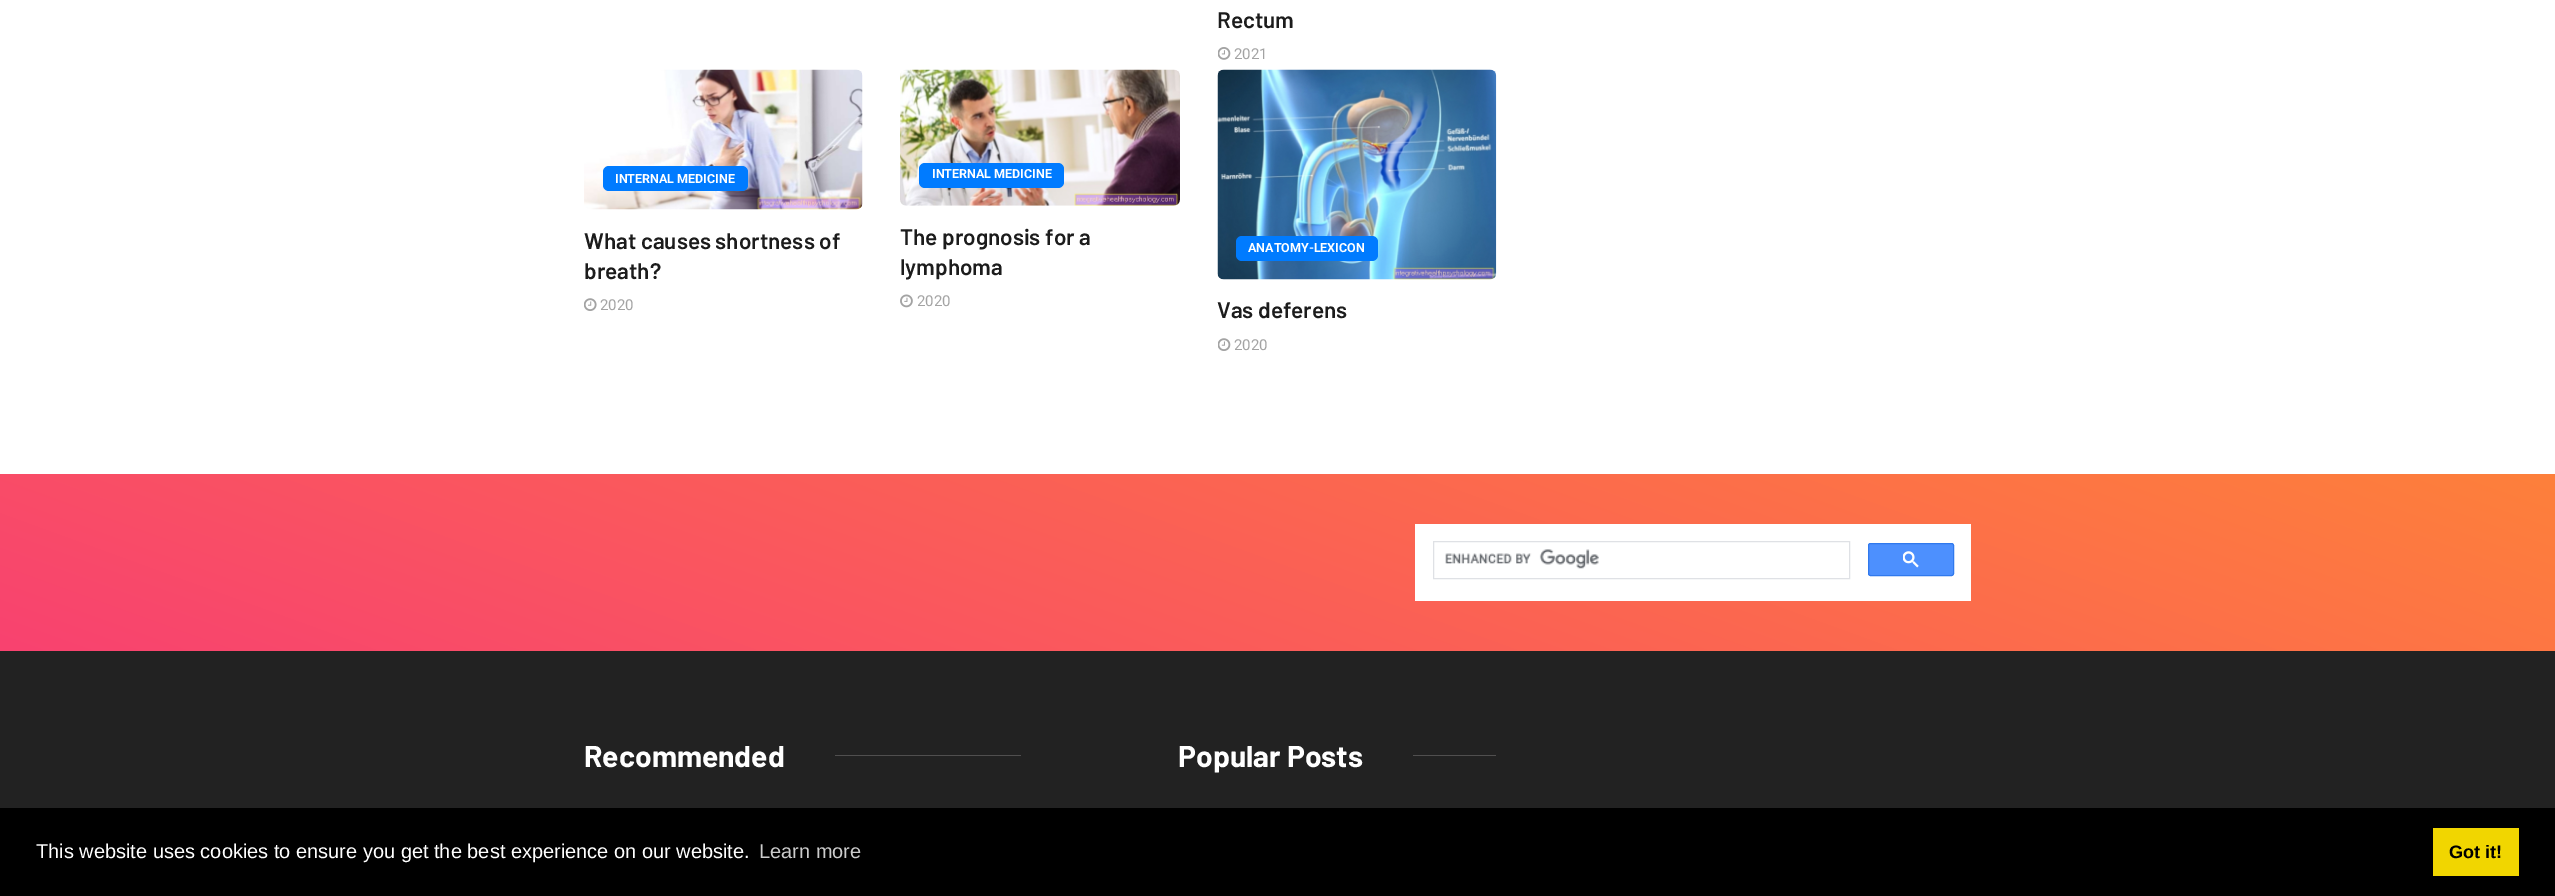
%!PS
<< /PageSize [2555 896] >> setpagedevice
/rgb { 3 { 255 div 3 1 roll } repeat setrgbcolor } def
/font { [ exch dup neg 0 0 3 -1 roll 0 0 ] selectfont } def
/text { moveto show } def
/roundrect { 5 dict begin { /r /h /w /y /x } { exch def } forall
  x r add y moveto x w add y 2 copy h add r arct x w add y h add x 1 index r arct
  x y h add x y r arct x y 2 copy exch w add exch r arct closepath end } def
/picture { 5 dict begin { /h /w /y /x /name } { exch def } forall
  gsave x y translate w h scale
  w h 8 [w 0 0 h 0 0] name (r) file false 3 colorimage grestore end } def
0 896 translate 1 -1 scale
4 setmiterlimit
255 255 255 rgb
0 0 2555 896 rectfill
(img_01.rgb) 1218 47 13 13 picture
(img_02.rgb) 584 69 279 141 picture
0 123 255 rgb
603 166 145 25 6 roundrect fill
(img_03.rgb) 584 298 13 13 picture
(img_04.rgb) 900 69 280 137 picture
919 163 145 25 6 roundrect fill
(img_05.rgb) 900 294 13 14 picture
(img_06.rgb) 1217 69 280 211 picture
1236 236 142 25 6 roundrect fill
(img_07.rgb) 1218 338 13 13 picture
gsave 0 474 moveto 2555 0 rlineto 0 177 rlineto -2555 0 rlineto closepath clip newpath
<< /ShadingType 2 /ColorSpace /DeviceRGB /Coords [1100 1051 1455 74] /Extend [true true] /Function << /FunctionType 2 /Domain [0 1] /C0 [0.973 0.259 0.439] /C1 [0.996 0.502 0.231] /N 1 >> >> shfill grestore
255 255 255 rgb
1415 524 556 77 rectfill
223 225 229 rgb
1433.5 541.5 416 37 rectstroke
(img_08.rgb) 1445 549 154 20 picture
77 144 254 rgb
1868.5 543.5 85 32 2 roundrect gsave fill grestore
48 121 237 rgb
stroke
(img_09.rgb) 1903 551 16 17 picture
34 34 34 rgb
0 651 2555 157 rectfill
80 79 79 rgb
835 755 186 1 rectfill
1413 755 83 1 rectfill
0 0 0 rgb
0 808 2555 88 rectfill
241 214 0 rgb
2433 828 86 48 rectfill
/Barlow-SemiBold 22.5 font
28 28 28 rgb
(Rectum) 1217 28 text
/Roboto-Regular 15 font
163 163 163 rgb
(2021) 1234 59 text
/Roboto-Bold 12.5 font
255 255 255 rgb
(INTERNAL MEDICINE) 615 183 text
/Barlow-SemiBold 22.5 font
28 28 28 rgb
(What causes shortness of) 584 249 text
(breath?) 584 279 text
/Roboto-Regular 15 font
163 163 163 rgb
(2020) 600 310 text
/Roboto-Bold 12.5 font
255 255 255 rgb
(INTERNAL MEDICINE) 932 178 text
/Barlow-SemiBold 22.5 font
28 28 28 rgb
(The prognosis for a) 900 245 text
(lymphoma) 900 275 text
/Roboto-Regular 15 font
163 163 163 rgb
(2020) 917 306 text
/Roboto-Bold 12.5 font
255 255 255 rgb
(ANATOMY-LEXICON) 1248 252 text
/Barlow-SemiBold 22.5 font
28 28 28 rgb
(Vas deferens) 1217 318 text
/Roboto-Regular 15 font
163 163 163 rgb
(2020) 1234 350 text
/Barlow-Bold 30 font
255 255 255 rgb
(Recommended) 584 767 text
(Popular Posts) 1178 767 text
/LiberationSans-Regular 20 font
(This website uses cookies to ensure you get the best experience on our website.) 36 858 text
204 204 204 rgb
(Learn more) 759 858 text
/LiberationSans-Bold 18 font
0 0 0 rgb
(Got it!) 2449 858 text
showpage
